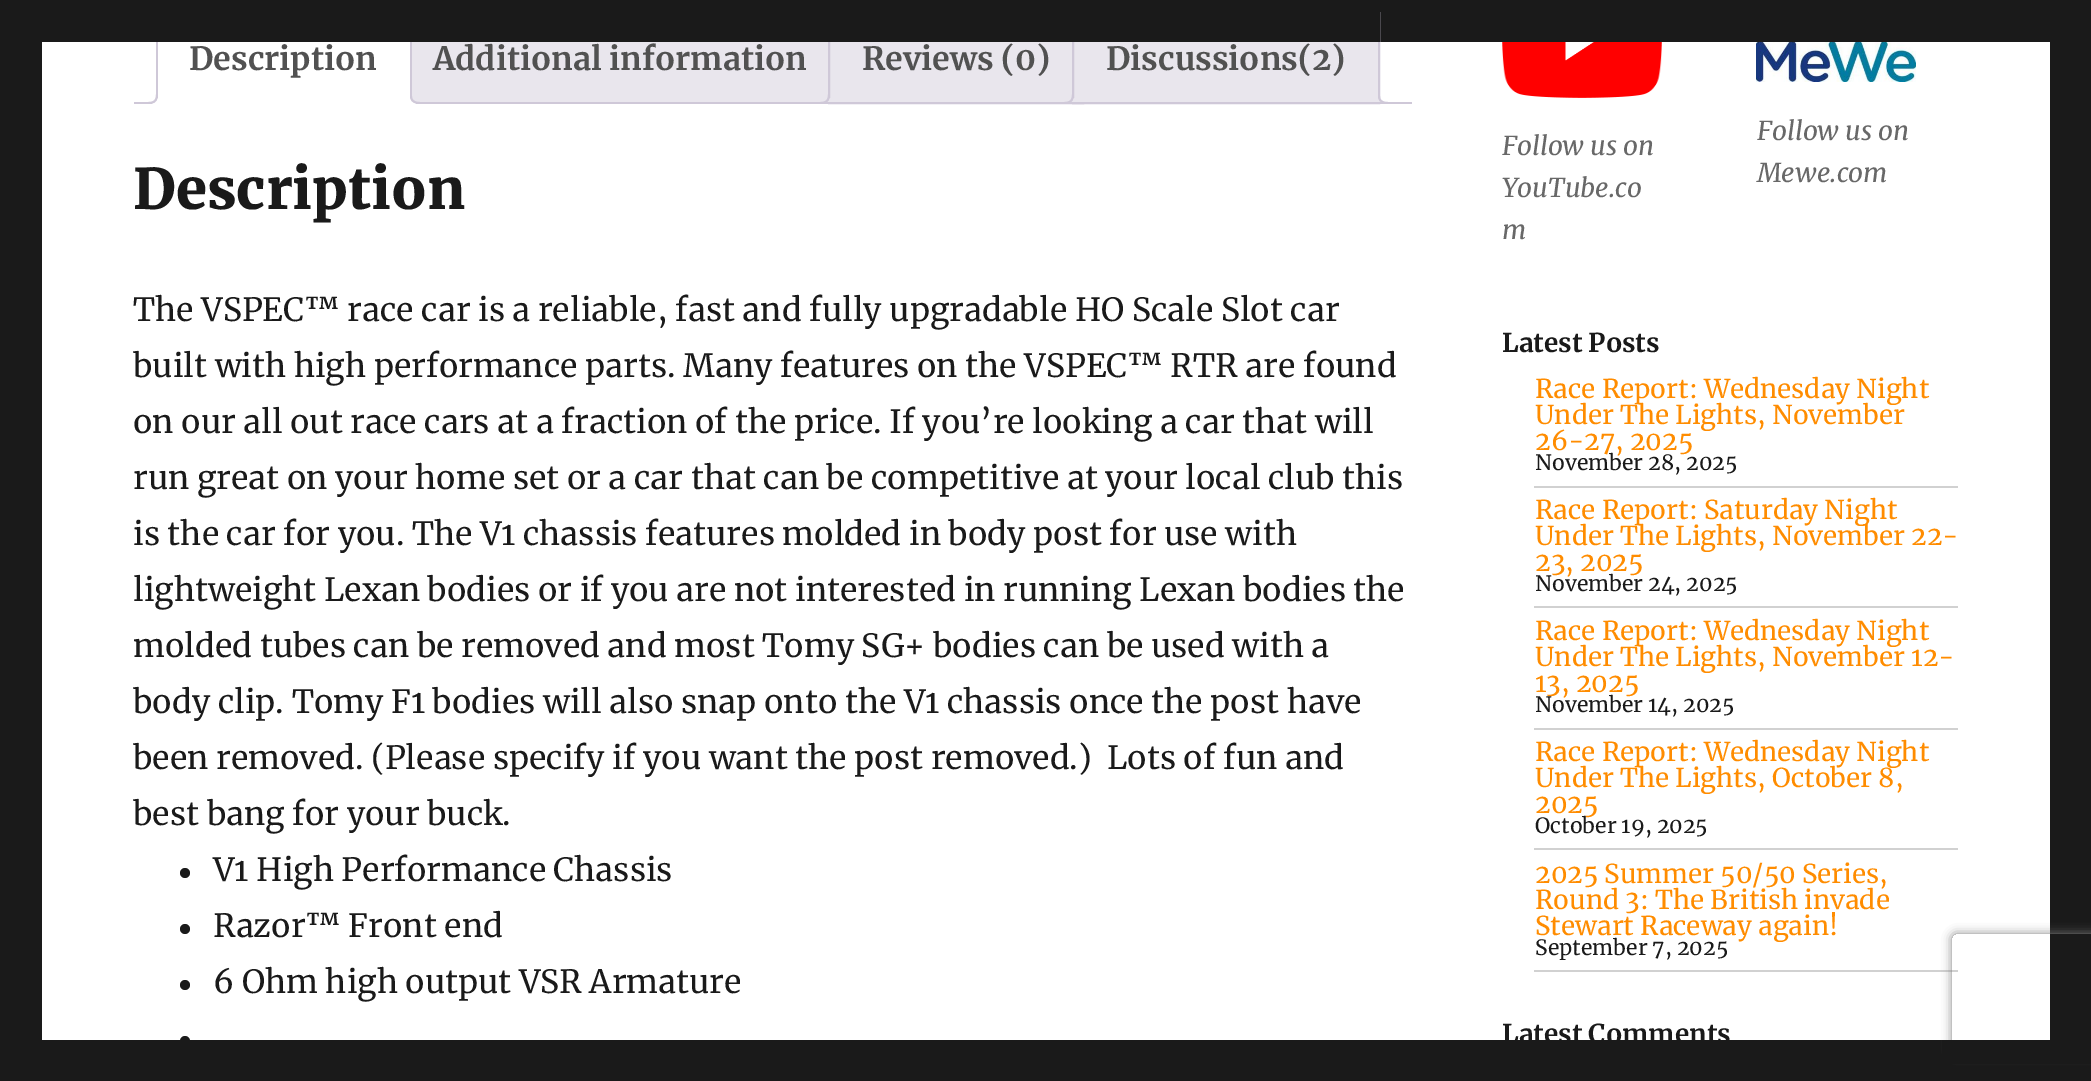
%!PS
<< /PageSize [2091 1081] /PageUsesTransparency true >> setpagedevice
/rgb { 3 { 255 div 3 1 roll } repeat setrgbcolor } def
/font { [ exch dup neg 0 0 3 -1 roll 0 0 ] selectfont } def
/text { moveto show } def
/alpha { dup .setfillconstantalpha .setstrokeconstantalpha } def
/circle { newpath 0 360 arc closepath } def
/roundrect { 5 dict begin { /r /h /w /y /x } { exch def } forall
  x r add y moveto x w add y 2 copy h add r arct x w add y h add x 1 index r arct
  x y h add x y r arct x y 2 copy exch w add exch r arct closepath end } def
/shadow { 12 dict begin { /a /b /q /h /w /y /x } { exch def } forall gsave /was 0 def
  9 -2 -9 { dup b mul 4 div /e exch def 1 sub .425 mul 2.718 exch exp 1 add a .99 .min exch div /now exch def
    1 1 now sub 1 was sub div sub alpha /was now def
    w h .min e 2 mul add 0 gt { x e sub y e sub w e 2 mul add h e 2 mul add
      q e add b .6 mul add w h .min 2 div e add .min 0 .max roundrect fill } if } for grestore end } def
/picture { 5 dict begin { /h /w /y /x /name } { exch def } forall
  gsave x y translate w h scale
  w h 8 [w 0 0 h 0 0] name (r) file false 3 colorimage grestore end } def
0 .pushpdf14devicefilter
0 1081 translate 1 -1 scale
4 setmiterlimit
26 26 26 rgb
0 0 2091 1081 rectfill
255 255 255 rgb
42 42 2008 998 rectfill
233 230 237 rgb
830 42 242 60 rectfill
207 200 216 rgb
2 setlinewidth
829 13 254 90 rectstroke
233 230 237 rgb
412 42 416 60 rectfill
gsave
134 12 1278 92 rectclip
824 103.5 moveto 0 4.5 rlineto 7 0 10 -3 10 -10 rcurveto -4.5 0 rlineto -0.5 3 -2.5 5 -5.5 5.5 rcurveto closepath fill
grestore
207 200 216 rgb
820 94 moveto 10 0 rlineto 0 7 -3 10 -10 10 rcurveto closepath 820 94 moveto 8 0 rlineto 0 6 -2 8 -8 8 rcurveto closepath eofill
233 230 237 rgb
1074 42 304 60 rectfill
207 200 216 rgb
1073 13 306 90 rectstroke
gsave
134 12 1278 92 rectclip
233 230 237 rgb
1068 103.5 moveto 0 4.5 rlineto 7 0 10 -3 10 -10 rcurveto -4.5 0 rlineto -0.5 3 -2.5 5 -5.5 5.5 rcurveto closepath fill
grestore
1064 94 moveto 10 0 rlineto 0 7 -3 10 -10 10 rcurveto closepath 1064 94 moveto 8 0 rlineto 0 6 -2 8 -8 8 rcurveto closepath eofill
gsave
134 12 1278 92 rectclip
233 230 237 rgb
1374 98 moveto 0 7 3 10 10 10 rcurveto 0 -4.5 rlineto -3 -0.5 -5 -2.5 -5.5 -5.5 rcurveto closepath fill
grestore
1378 94 moveto 10 0 rlineto 0 10 rlineto -5 0 -10 -2 -10 -8 rcurveto closepath 1380 94 moveto 8 0 rlineto 0 8 rlineto -4 0 -8 -1 -8 -6 rcurveto closepath eofill
134 102 1278 2 rectfill
412 104 moveto 0 -84 rlineto 0 -2 -1 -4 -2 -6 rcurveto -2 2 rlineto 2 3 rlineto 0 83 rlineto closepath fill
255 255 255 rgb
412 104 moveto -2 -2 rlineto -252 0 rlineto -2 2 rlineto closepath fill
207 200 216 rgb
156 104 moveto 2 -2 rlineto 0 -83 rlineto 2 -3 rlineto -2 -2 rlineto -1 2 -2 4 -2 6 rcurveto closepath fill
26 26 26 rgb
156 12 1224 30 rectfill
gsave
134 12 1278 92 rectclip
255 255 255 rgb
152 103.5 moveto 0 4.5 rlineto 7 0 10 -3 10 -10 rcurveto -4.5 0 rlineto -0.5 3 -2.5 5 -5.5 5.5 rcurveto closepath fill
grestore
207 200 216 rgb
148 94 moveto 10 0 rlineto 0 7 -3 10 -10 10 rcurveto closepath 148 94 moveto 8 0 rlineto 0 6 -2 8 -8 8 rcurveto closepath eofill
gsave
134 12 1278 92 rectclip
255 255 255 rgb
406 98 moveto 0 7 3 10 10 10 rcurveto 0 -4.5 rlineto -3 -0.5 -5 -2.5 -5.5 -5.5 rcurveto closepath fill
grestore
410 94 moveto 10 0 rlineto 0 10 rlineto -5 0 -10 -2 -10 -8 rcurveto closepath 412 94 moveto 8 0 rlineto 0 8 rlineto -4 0 -8 -1 -8 -6 rcurveto closepath eofill
26 26 26 rgb
185 873 5 circle fill
185 929 5 circle fill
185 985 5 circle fill
185 1041 5 circle fill
(img_01.rgb) 1502 42 160 56 picture
(img_02.rgb) 1756 42 160 40 picture
209 209 209 rgb
1534 486 424 2 rectfill
1534 606 424 2 rectfill
1534 728 424 2 rectfill
1534 848 424 2 rectfill
1534 970 424 2 rectfill
gsave
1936 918 moveto 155 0 rlineto 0 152 rlineto -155 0 rlineto closepath 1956 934 moveto 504 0 rlineto 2 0 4 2 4 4 rcurveto 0 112 rlineto 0 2 -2 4 -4 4 rcurveto -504 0 rlineto -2 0 -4 -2 -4 -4 rcurveto 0 -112 rlineto 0 -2 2 -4 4 -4 rcurveto closepath eoclip newpath
128 128 128 rgb
1952 934 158 120 4 5 1 shadow
grestore
26 26 26 rgb
1942 1040 149 24 rectfill
/Merriweather-Bold 32 font
81 81 81 rgb
(Description) 189 70 text
(Additional information) 433 70 text
(Reviews \(0\)) 862 70 text
(Discussions\(2\)) 1106 70 text
/Merriweather-Black 56 font
26 26 26 rgb
(Description) 133 209 text
/Merriweather-Regular 32 font
(The VSPEC™ race car is a reliable, fast and fully upgradable HO Scale Slot car) 133 321 text
(built with high performance parts. Many features on the VSPEC™ RTR are found) 133 377 text
(on our all out race cars at a fraction of the price. If you’re looking a car that will) 133 433 text
(run great on your home set or a car that can be competitive at your local club this) 133 489 text
(is the car for you. The V1 chassis features molded in body post for use with) 133 545 text
(lightweight Lexan bodies or if you are not interested in running Lexan bodies the) 133 601 text
(molded tubes can be removed and most Tomy SG+ bodies can be used with a) 133 657 text
(body clip. Tomy F1 bodies will also snap onto the V1 chassis once the post have) 133 713 text
(been removed. \(Please specify if you want the post removed.\)  Lots of fun and) 133 769 text
(best bang for your buck.) 133 825 text
(V1 High Performance Chassis) 213 881 text
(Razor™ Front end) 213 937 text
(6 Ohm high output VSR Armature) 213 993 text
/Merriweather-Italic 26 font
104 104 104 rgb
(Follow us on) 1502 155 text
(YouTube.co) 1502 197 text
(m) 1502 239 text
(Follow us on) 1757 140 text
(Mewe.com) 1757 182 text
/Merriweather-Bold 26 font
26 26 26 rgb
(Latest Posts) 1502 352 text
/Merriweather-Regular 26 font
255 140 0 rgb
(Race Report: Wednesday Night) 1535 398 text
(Under The Lights, November) 1535 424 text
(26-27, 2025) 1535 450 text
/Merriweather-Regular 21.1 font
26 26 26 rgb
(November 28, 2025) 1535 470 text
/Merriweather-Regular 26 font
255 140 0 rgb
(Race Report: Saturday Night) 1535 519 text
(Under The Lights, November 22-) 1535 545 text
(23, 2025) 1535 571 text
/Merriweather-Regular 21.1 font
26 26 26 rgb
(November 24, 2025) 1535 591 text
/Merriweather-Regular 26 font
255 140 0 rgb
(Race Report: Wednesday Night) 1535 640 text
(Under The Lights, November 12-) 1535 666 text
(13, 2025) 1535 692 text
/Merriweather-Regular 21.1 font
26 26 26 rgb
(November 14, 2025) 1535 712 text
/Merriweather-Regular 26 font
255 140 0 rgb
(Race Report: Wednesday Night) 1535 761 text
(Under The Lights, October 8,) 1535 787 text
(2025) 1535 813 text
/Merriweather-Regular 21.1 font
26 26 26 rgb
(October 19, 2025) 1535 833 text
/Merriweather-Regular 26 font
255 140 0 rgb
(2025 Summer 50/50 Series,) 1535 883 text
(Round 3: The British invade) 1535 909 text
(Stewart Raceway again!) 1535 935 text
/Merriweather-Regular 21.1 font
26 26 26 rgb
(September 7, 2025) 1535 955 text
/Merriweather-Bold 26 font
(Latest Comments) 1502 1043 text
.poppdf14devicefilter showpage
